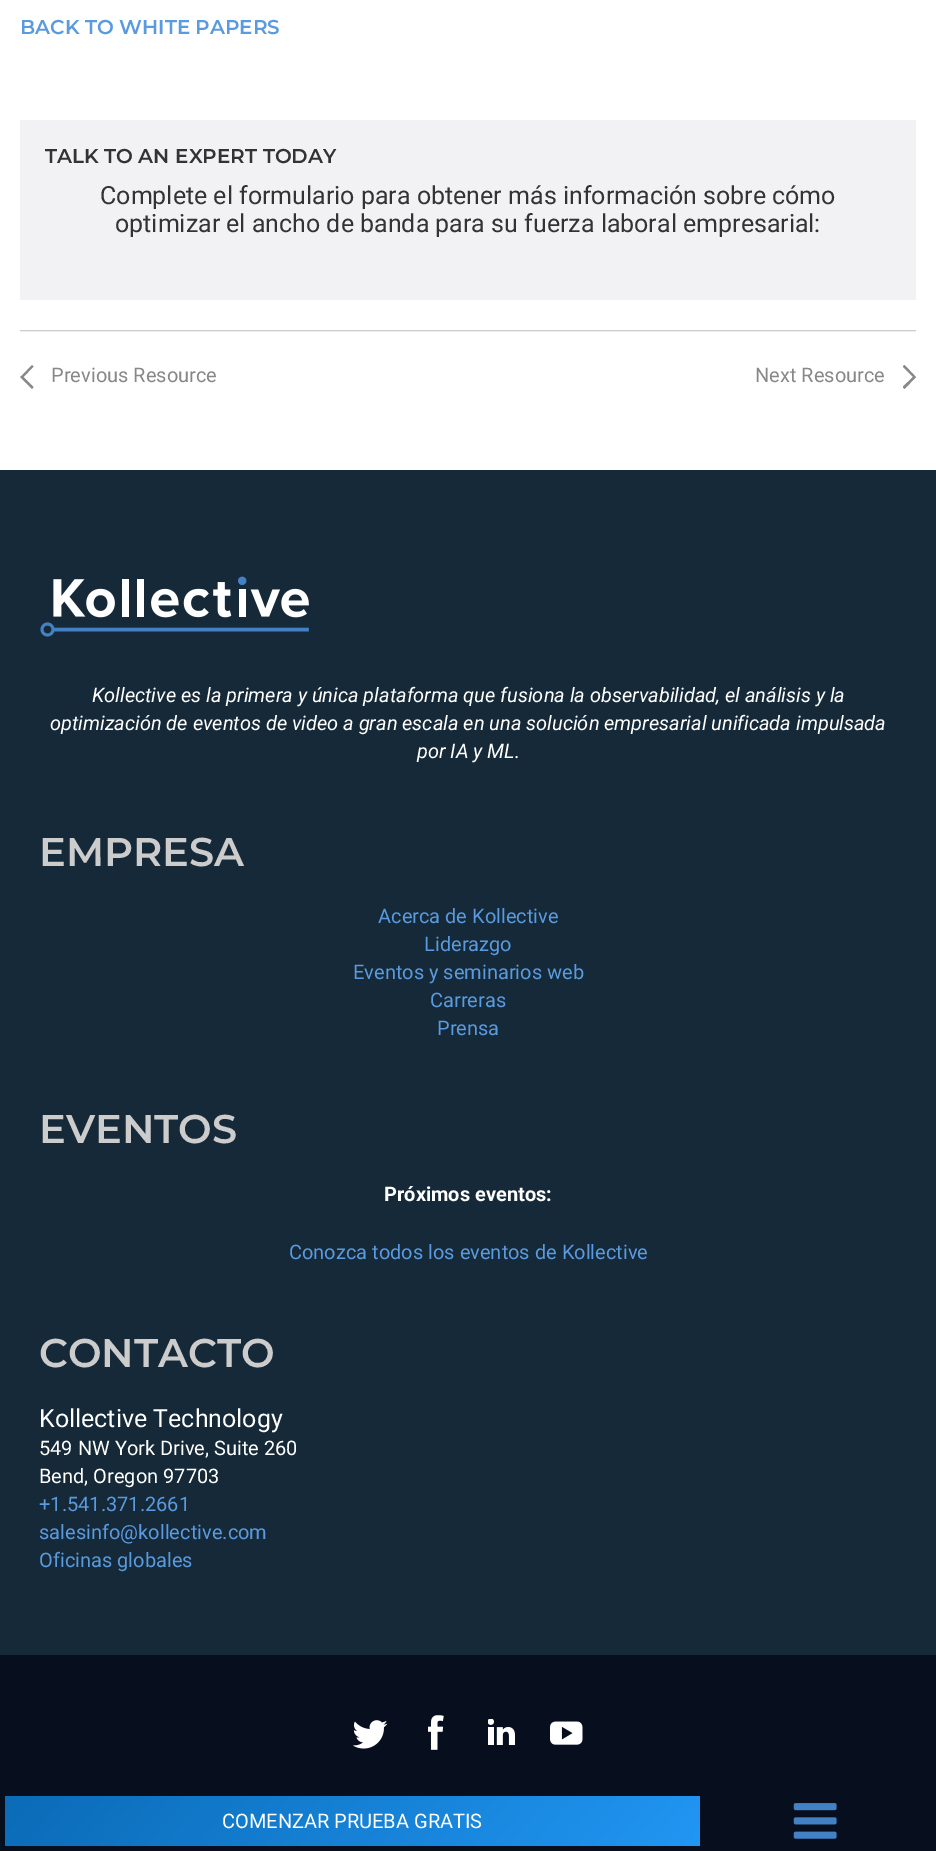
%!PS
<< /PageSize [936 1851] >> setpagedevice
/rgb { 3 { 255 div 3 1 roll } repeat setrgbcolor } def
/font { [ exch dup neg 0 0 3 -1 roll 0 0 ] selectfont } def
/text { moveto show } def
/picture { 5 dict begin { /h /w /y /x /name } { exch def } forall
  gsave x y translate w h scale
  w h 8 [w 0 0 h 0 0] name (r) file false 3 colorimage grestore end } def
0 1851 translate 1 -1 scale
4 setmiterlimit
255 255 255 rgb
0 0 936 1851 rectfill
242 241 244 rgb
20 120 896 180 rectfill
238 238 238 rgb
20 331 896 1 rectfill
204 204 204 rgb
20 330 896 1 rectfill
136 136 136 rgb
22 375.5 moveto 10 -10.5 rlineto 1.5 1.5 rlineto -10 10.5 rlineto 10 10 rlineto -1.5 2 rlineto -12 -12 rlineto closepath fill
gsave
903 365 13 24 rectclip
916 377 moveto -11.5 12 rlineto -2 -2 rlineto 10.5 -10 rlineto -10.5 -10.5 rlineto 2 -1.5 rlineto 10 10.5 rlineto closepath fill
grestore
21 41 57 rgb
0 470 936 1185 rectfill
(img_01.rgb) 40 576 269 61 picture
7 14 30 rgb
0 1655 936 196 rectfill
(img_02.rgb) 353 1720 35 29 picture
(img_03.rgb) 428 1715 16 35 picture
(img_04.rgb) 488 1719 27 26 picture
(img_05.rgb) 550 1721 33 24 picture
gsave 5 1796 moveto 695 0 rlineto 0 50 rlineto -695 0 rlineto closepath clip newpath
<< /ShadingType 2 /ColorSpace /DeviceRGB /Coords [142 1638 563 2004] /Extend [true true] /Function << /FunctionType 2 /Domain [0 1] /C0 [0.043 0.42 0.718] /C1 [0.129 0.588 0.953] /N 1 >> >> shfill grestore
(img_06.rgb) 793 1803 44 36 picture
/Montserrat-SemiBold 20 font
90 154 222 rgb
(BACK TO WHITE PAPERS) 20 34 text
51 51 51 rgb
(TALK TO AN EXPERT TODAY) 45 163 text
/Roboto-Regular 25 font
(Complete el formulario para obtener más información sobre cómo) 100 204 text
(optimizar el ancho de banda para su fuerza laboral empresarial:) 115 232 text
/Roboto-Regular 20 font
136 136 136 rgb
(Previous Resource) 51 382 text
(Next Resource) 755 382 text
/Roboto-Italic 20 font
255 255 255 rgb
(Kollective es la primera y única plataforma que fusiona la observabilidad, el análisis y la) 92 702 text
(optimización de eventos de video a gran escala en una solución empresarial unificada impulsada) 50 730 text
(por IA y ML.) 417 758 text
/Montserrat-SemiBold 40 font
204 204 204 rgb
(EMPRESA) 39 866 text
/Roboto-Regular 20 font
90 154 222 rgb
(Acerca de Kollective) 378 923 text
(Liderazgo) 424 951 text
(Eventos y seminarios web) 353 979 text
(Carreras) 430 1007 text
(Prensa) 437 1035 text
/Montserrat-SemiBold 40 font
204 204 204 rgb
(EVENTOS) 39 1143 text
/Roboto-Bold 20 font
255 255 255 rgb
(Próximos eventos:) 384 1201 text
/Roboto-Regular 20 font
90 154 222 rgb
(Conozca todos los eventos de Kollective) 289 1259 text
/Montserrat-SemiBold 40 font
204 204 204 rgb
(CONTACTO) 39 1367 text
/Roboto-Regular 25 font
255 255 255 rgb
(Kollective Technology) 39 1427 text
/Roboto-Regular 20 font
(549 NW York Drive, Suite 260) 39 1455 text
(Bend, Oregon 97703) 39 1483 text
90 154 222 rgb
(+1.541.371.2661) 39 1511 text
(salesinfo@kollective.com) 39 1539 text
(Oficinas globales) 39 1567 text
255 255 255 rgb
(COMENZAR PRUEBA GRATIS) 222 1828 text
showpage
